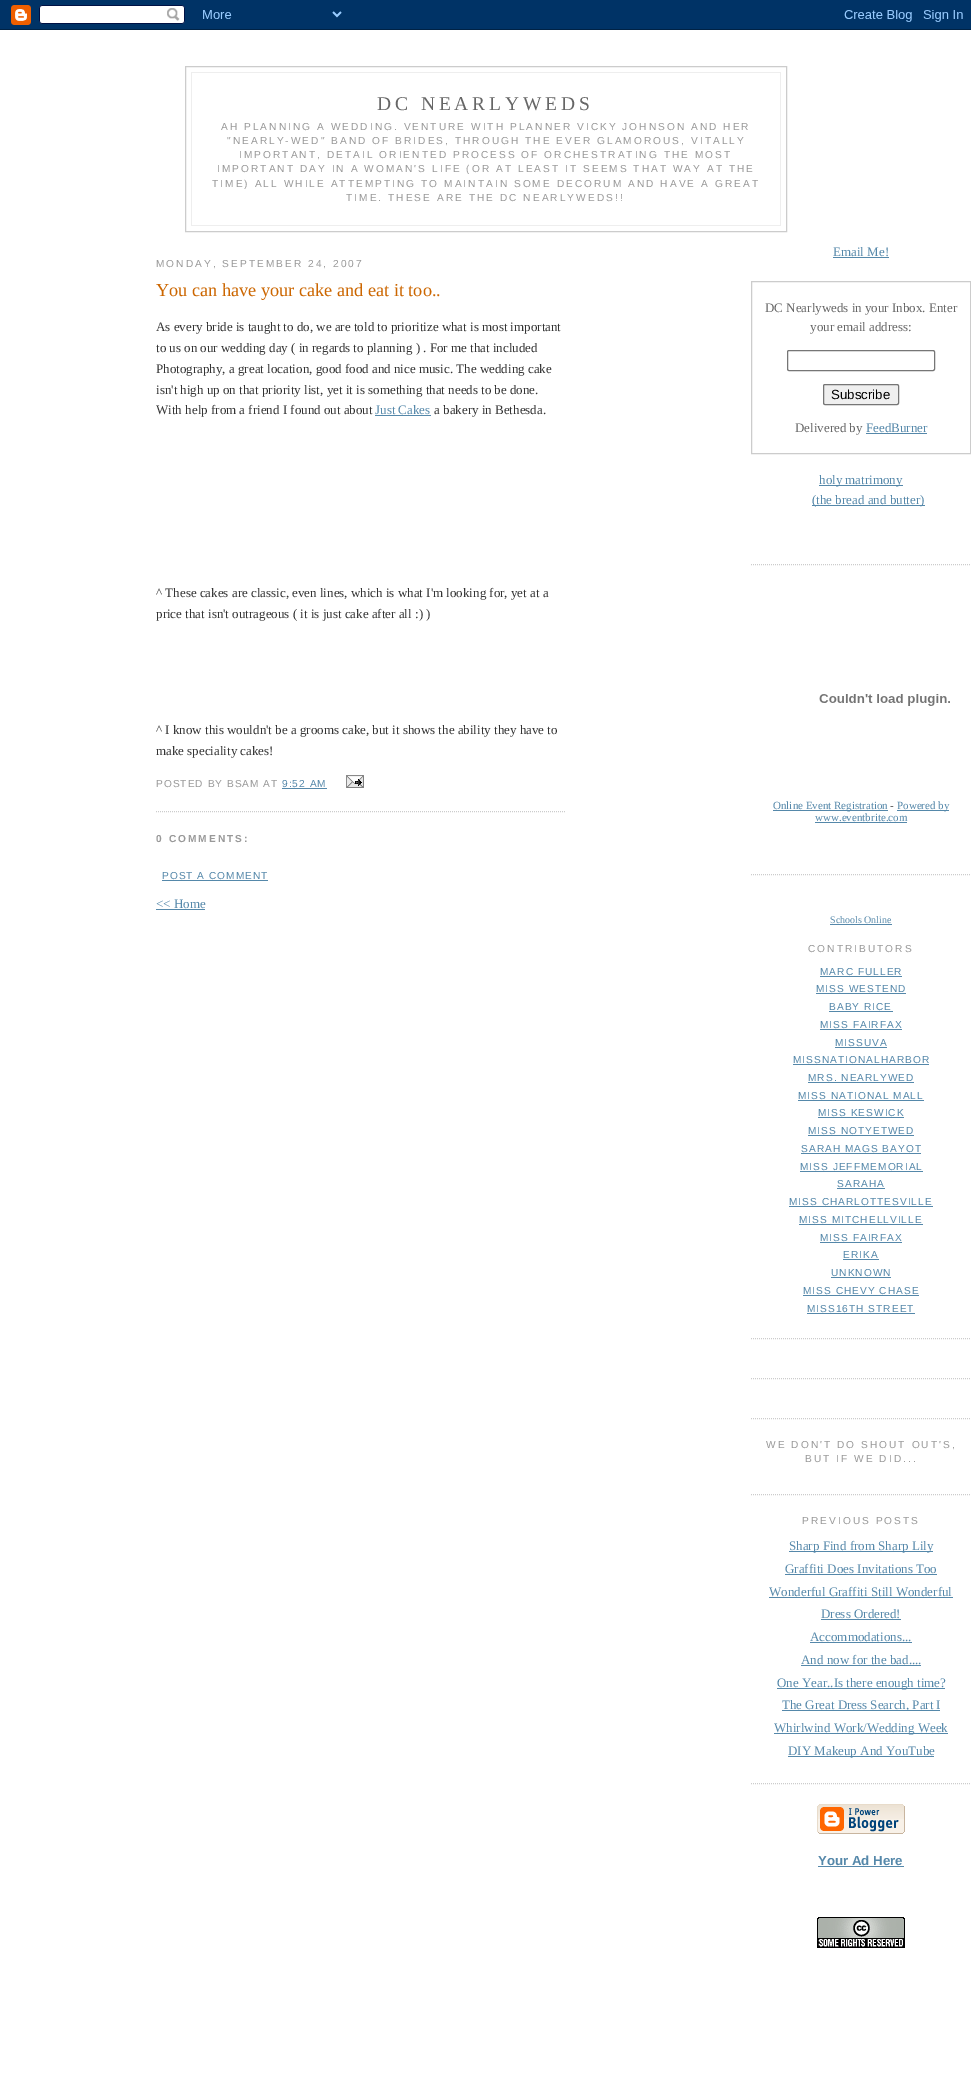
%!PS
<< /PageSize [971 2094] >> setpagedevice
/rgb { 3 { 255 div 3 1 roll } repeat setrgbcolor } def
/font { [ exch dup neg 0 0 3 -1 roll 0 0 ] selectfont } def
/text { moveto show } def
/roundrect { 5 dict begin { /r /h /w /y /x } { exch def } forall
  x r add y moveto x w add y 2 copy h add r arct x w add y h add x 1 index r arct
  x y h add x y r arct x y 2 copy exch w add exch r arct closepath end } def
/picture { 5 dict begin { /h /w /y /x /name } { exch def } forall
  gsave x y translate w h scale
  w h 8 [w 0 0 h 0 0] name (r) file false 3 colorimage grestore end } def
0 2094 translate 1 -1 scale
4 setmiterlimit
255 255 255 rgb
0 0 971 2094 rectfill
(img_01.rgb) 0 0 971 30 picture
204 204 204 rgb
185.5 66.5 601 165 rectstroke
238 238 238 rgb
191 72 590 1 rectfill
780 72 1 154 rectfill
191 72 1 48 rectfill
191 225 590 1 rectfill
191 120 1 106 rectfill
204 204 204 rgb
[1 1] 0 setdash
156 811.5 moveto 410 0 rlineto stroke
85 136 170 rgb
375 415 56 1 rectfill
282 788 45 1 rectfill
(img_02.rgb) 346 775 18 13 picture
162 880 106 1 rectfill
156 909 49 1 rectfill
204 204 204 rgb
751 564.5 moveto 220 0 rlineto stroke
85 136 170 rgb
833 257 56 1 rectfill
204 204 204 rgb
[] 0 setdash
751.5 281.5 219 172 rectstroke
118 118 118 rgb
787.5 350.5 147 20 1.5 roundrect stroke
239 239 239 rgb
823.5 384.5 75 20 1.5 roundrect gsave fill grestore
118 118 118 rgb
stroke
85 136 170 rgb
866 433 61 1 rectfill
819 485 84 1 rectfill
812 505 113 1 rectfill
(img_03.rgb) 819 694 131 12 picture
773 810 115 1 rectfill
897 810 52 1 rectfill
815 822 92 1 rectfill
204 204 204 rgb
[1 1] 0 setdash
751 874.5 moveto 220 0 rlineto stroke
85 136 170 rgb
830 924 62 1 rectfill
204 204 204 rgb
751 1378.5 moveto 220 0 rlineto stroke
751 1338.5 moveto 220 0 rlineto stroke
85 136 170 rgb
820 976 82 1 rectfill
816 993 90 1 rectfill
829 1011 64 1 rectfill
820 1029 82 1 rectfill
835 1047 52 1 rectfill
793 1064 136 1 rectfill
808 1082 106 1 rectfill
798 1100 126 1 rectfill
818 1117 86 1 rectfill
808 1135 106 1 rectfill
801 1153 120 1 rectfill
800 1171 123 1 rectfill
837 1188 48 1 rectfill
789 1206 144 1 rectfill
799 1224 124 1 rectfill
820 1242 82 1 rectfill
843 1259 36 1 rectfill
831 1277 60 1 rectfill
803 1295 116 1 rectfill
807 1313 108 1 rectfill
204 204 204 rgb
751 1418.5 moveto 220 0 rlineto stroke
751 1494.5 moveto 220 0 rlineto stroke
751 1783.5 moveto 220 0 rlineto stroke
85 136 170 rgb
789 1551 144 1 rectfill
785 1574 152 1 rectfill
769 1597 184 1 rectfill
821 1619 80 1 rectfill
810 1642 102 1 rectfill
801 1665 120 1 rectfill
777 1688 168 1 rectfill
782 1710 158 1 rectfill
774 1733 174 1 rectfill
788 1756 146 1 rectfill
(img_04.rgb) 817 1804 88 30 picture
818 1866 86 1 rectfill
(img_05.rgb) 817 1917 88 31 picture
/LiberationSerif-Regular 19.5 font
102 102 102 rgb
377 110 moveto 3.9 0 (DC NEARLYWEDS) ashow
/LiberationSans-Regular 10.15 font
153 153 153 rgb
221 130 moveto 2.03 0 (AH PLANNING A WEDDING. VENTURE WITH PLANNER VICKY JOHNSON AND HER) ashow
227 144 moveto 2.03 0 ("NEARLY-WED" BAND OF BRIDES, THROUGH THE EVER GLAMOROUS, VITALLY) ashow
239 158 moveto 2.03 0 (IMPORTANT, DETAIL ORIENTED PROCESS OF ORCHESTRATING THE MOST) ashow
217 172 moveto 2.03 0 (IMPORTANT DAY IN A WOMAN'S LIFE \(OR AT LEAST IT SEEMS THAT WAY AT THE) ashow
212 187 moveto 2.03 0 (TIME\) ALL WHILE ATTEMPTING TO MAINTAIN SOME DECORUM AND HAVE A GREAT) ashow
346 201 moveto 2.03 0 (TIME. THESE ARE THE DC NEARLYWEDS!!) ashow
156 267 moveto 2.03 0 (MONDAY, SEPTEMBER 24, 2007) ashow
/LiberationSerif-Regular 18.25 font
204 102 0 rgb
(You can have your cake and eat it too..) 156 296 text
/LiberationSerif-Regular 13 font
51 51 51 rgb
(As every bride is taught to do, we are told to prioritize what is most important) 156 331 text
(to us on our wedding day \( in regards to planning \) . For me that included) 156 352 text
(Photography, a great location, good food and nice music. The wedding cake) 156 373 text
(isn't high up on that priority list, yet it is something that needs to be done.) 156 394 text
(With help from a friend I found out about) 156 414 text
85 136 170 rgb
(Just Cakes) 375 414 text
51 51 51 rgb
(a bakery in Bethesda.) 434 414 text
(^ These cakes are classic, even lines, which is what I'm looking for, yet at a) 156 597 text
(price that isn't outrageous \( it is just cake after all :\) \)) 156 618 text
(^ I know this wouldn't be a grooms cake, but it shows the ability they have to) 156 734 text
(make speciality cakes!) 156 755 text
/LiberationSans-Regular 10.15 font
153 153 153 rgb
156 787 moveto 1 0 (POSTED BY BSAM AT) ashow
85 136 170 rgb
282 787 moveto 1 0 (9:52 AM) ashow
/LiberationSans-Bold 10.15 font
153 153 153 rgb
156 842 moveto 2.03 0 (0 COMMENTS:) ashow
/LiberationSans-Regular 10.15 font
85 136 170 rgb
162 879 moveto 1 0 (POST A COMMENT) ashow
/LiberationSerif-Regular 13 font
(<< Home) 156 908 text
(Email Me!) 833 256 text
102 102 102 rgb
(DC Nearlyweds in your Inbox. Enter) 765 312 text
(your email address:) 810 331 text
/LiberationSans-Regular 13.25 font
0 0 0 rgb
(Subscribe) 831 399 text
/LiberationSerif-Regular 13 font
102 102 102 rgb
(Delivered by) 795 432 text
85 136 170 rgb
(FeedBurner) 866 432 text
(holy matrimony) 819 484 text
(\(the bread and butter\)) 812 504 text
/LiberationSerif-Regular 11 font
(Online Event Registration) 773 809 text
51 51 51 rgb
(-) 890 809 text
85 136 170 rgb
(Powered by) 897 809 text
(www.eventbrite.com) 815 821 text
/LiberationSerif-Regular 10 font
(Schools Online) 830 923 text
/LiberationSans-Regular 10.15 font
153 153 153 rgb
808 952 moveto 2.03 0 (CONTRIBUTORS) ashow
85 136 170 rgb
820 975 moveto 1 0 (MARC FULLER) ashow
816 992 moveto 1 0 (MISS WESTEND) ashow
829 1010 moveto 1 0 (BABY RICE) ashow
820 1028 moveto 1 0 (MISS FAIRFAX) ashow
835 1046 moveto 1 0 (MISSUVA) ashow
793 1063 moveto 1 0 (MISSNATIONALHARBOR) ashow
808 1081 moveto 1 0 (MRS. NEARLYWED) ashow
798 1099 moveto 1 0 (MISS NATIONAL MALL) ashow
818 1116 moveto 1 0 (MISS KESWICK) ashow
808 1134 moveto 1 0 (MISS NOTYETWED) ashow
801 1152 moveto 1 0 (SARAH MAGS BAYOT) ashow
800 1170 moveto 1 0 (MISS JEFFMEMORIAL) ashow
837 1187 moveto 1 0 (SARAHA) ashow
789 1205 moveto 1 0 (MISS CHARLOTTESVILLE) ashow
799 1223 moveto 1 0 (MISS MITCHELLVILLE) ashow
820 1241 moveto 1 0 (MISS FAIRFAX) ashow
843 1258 moveto 1 0 (ERIKA) ashow
831 1276 moveto 1 0 (UNKNOWN) ashow
803 1294 moveto 1 0 (MISS CHEVY CHASE) ashow
807 1312 moveto 1 0 (MISS16TH STREET) ashow
153 153 153 rgb
766 1448 moveto 2.03 0 (WE DON'T DO SHOUT OUT'S,) ashow
805 1462 moveto 2.03 0 (BUT IF WE DID...) ashow
802 1524 moveto 2.03 0 (PREVIOUS POSTS) ashow
/LiberationSerif-Regular 13 font
85 136 170 rgb
(Sharp Find from Sharp Lily) 789 1550 text
(Graffiti Does Invitations Too) 785 1573 text
(Wonderful Graffiti Still Wonderful) 769 1596 text
(Dress Ordered!) 821 1618 text
(Accommodations...) 810 1641 text
(And now for the bad....) 801 1664 text
(One Year..Is there enough time?) 777 1687 text
(The Great Dress Search, Part I) 782 1709 text
(Whirlwind Work/Wedding Week) 774 1732 text
(DIY Makeup And YouTube) 788 1755 text
/LiberationSans-Bold 13.25 font
(Your Ad Here) 818 1865 text
showpage
